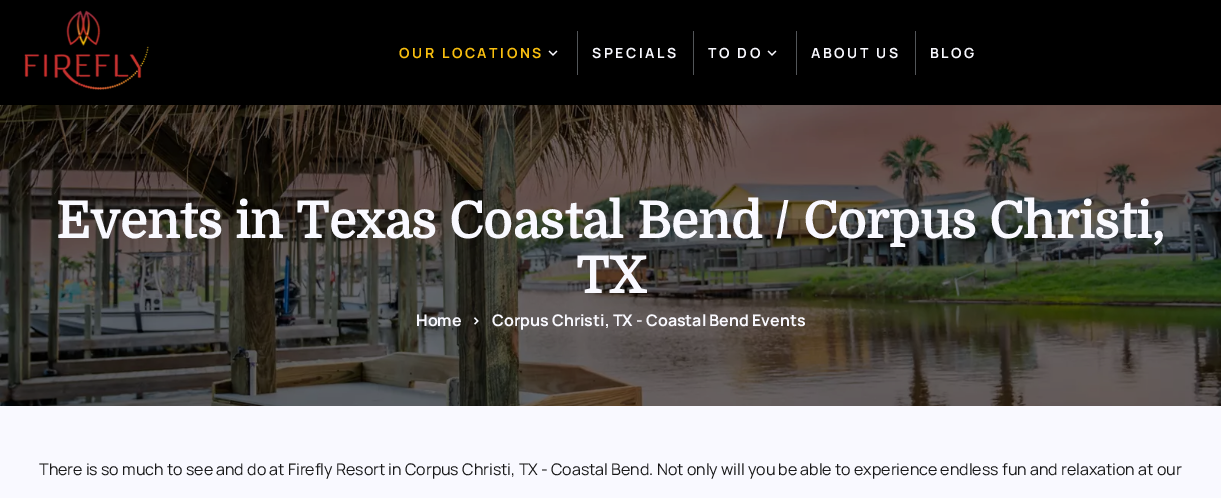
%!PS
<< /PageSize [1221 498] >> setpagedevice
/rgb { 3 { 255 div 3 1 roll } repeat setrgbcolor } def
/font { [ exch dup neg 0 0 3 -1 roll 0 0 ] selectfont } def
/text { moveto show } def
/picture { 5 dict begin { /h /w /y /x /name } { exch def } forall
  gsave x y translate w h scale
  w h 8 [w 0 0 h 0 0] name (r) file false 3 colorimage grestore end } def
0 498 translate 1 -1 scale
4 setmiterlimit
249 249 255 rgb
0 0 1221 498 rectfill
0 0 0 rgb
0 0 1221 105 rectfill
(img_01.rgb) 24 10 125 80 picture
(img_02.rgb) 548 50 10 6 picture
82 85 88 rgb
577 31 1 44 rectfill
693 31 1 44 rectfill
(img_02.rgb) 767 50 10 6 picture
796 31 1 44 rectfill
915 31 1 44 rectfill
(img_03.rgb) 0 105 1221 301 picture
/Manrope-Bold 14 font
249 191 15 rgb
399 58 moveto 2.5 0 (OUR LOCATIONS) ashow
249 249 255 rgb
592 58 moveto 2.5 0 (SPECIALS) ashow
708 58 moveto 2.5 0 (TO DO) ashow
811 58 moveto 2.5 0 (ABOUT US) ashow
930 58 moveto 2.5 0 (BLOG) ashow
/Domine-Bold 50 font
(Events in Texas Coastal Bend / Corpus Christi,) 56 238 text
(TX) 576 293 text
/Manrope-Bold 16 font
(Home) 416 326 text
(>) 471 326 text
(Corpus Christi, TX - Coastal Bend Events) 492 326 text
/Manrope-Regular 16 font
25 25 25 rgb
(There is so much to see and do at Firefly Resort in Corpus Christi, TX - Coastal Bend. Not only will you be able to experience endless fun and relaxation at our) 39 475 text
showpage
